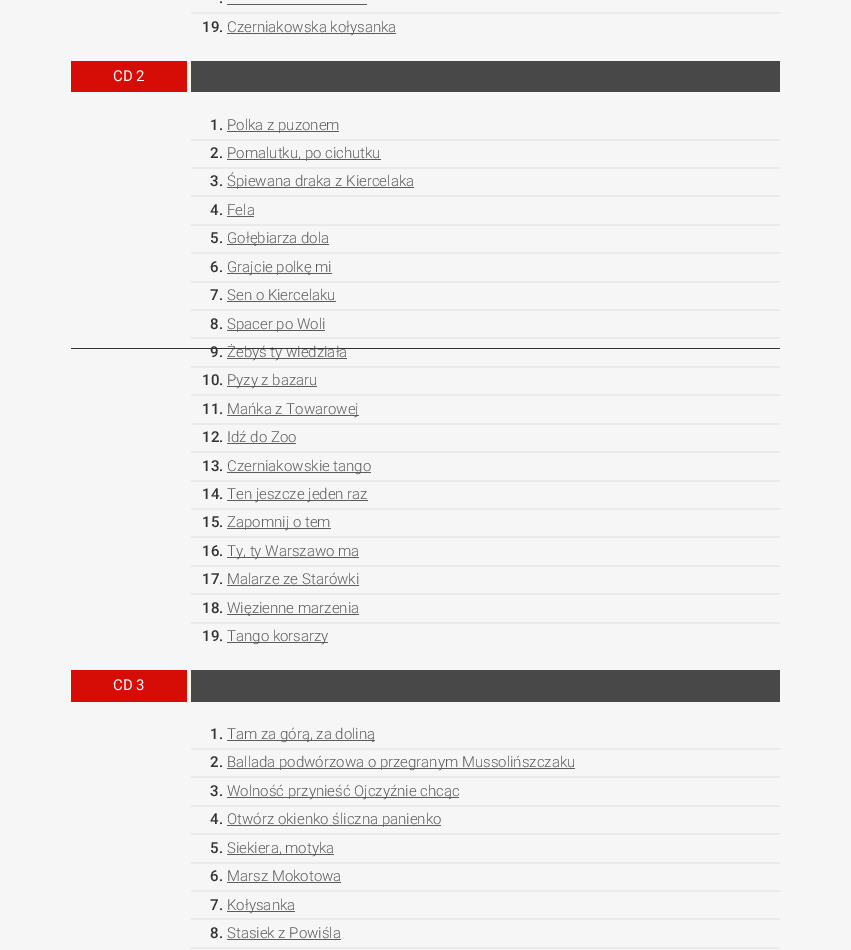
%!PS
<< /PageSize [851 950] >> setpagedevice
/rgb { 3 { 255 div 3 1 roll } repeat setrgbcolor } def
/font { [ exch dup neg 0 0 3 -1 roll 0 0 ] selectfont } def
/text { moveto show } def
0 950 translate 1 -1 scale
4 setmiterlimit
246 246 246 rgb
0 0 851 950 rectfill
92 92 92 rgb
227 4 140 1 rectfill
234 234 234 rgb
191 12 589 2 rectfill
92 92 92 rgb
227 33 169 1 rectfill
214 12 7 rgb
71 61 116 31 rectfill
72 72 72 rgb
191 61 589 31 rectfill
92 92 92 rgb
227 131 112 1 rectfill
234 234 234 rgb
191 139 589 2 rectfill
92 92 92 rgb
227 159 154 1 rectfill
234 234 234 rgb
191 167 589 2 rectfill
92 92 92 rgb
227 187 187 1 rectfill
234 234 234 rgb
191 195 589 2 rectfill
92 92 92 rgb
227 216 27 1 rectfill
234 234 234 rgb
191 224 589 2 rectfill
92 92 92 rgb
227 244 102 1 rectfill
234 234 234 rgb
191 252 589 2 rectfill
92 92 92 rgb
227 273 105 1 rectfill
234 234 234 rgb
191 281 589 2 rectfill
92 92 92 rgb
227 301 109 1 rectfill
234 234 234 rgb
191 309 589 2 rectfill
92 92 92 rgb
227 330 98 1 rectfill
234 234 234 rgb
191 337 589 2 rectfill
92 92 92 rgb
227 358 120 1 rectfill
234 234 234 rgb
191 366 589 2 rectfill
92 92 92 rgb
227 386 90 1 rectfill
234 234 234 rgb
191 394 589 2 rectfill
92 92 92 rgb
227 415 132 1 rectfill
234 234 234 rgb
191 423 589 2 rectfill
92 92 92 rgb
227 443 69 1 rectfill
234 234 234 rgb
191 451 589 2 rectfill
92 92 92 rgb
227 472 144 1 rectfill
234 234 234 rgb
191 480 589 2 rectfill
92 92 92 rgb
227 500 141 1 rectfill
234 234 234 rgb
191 508 589 2 rectfill
92 92 92 rgb
227 528 104 1 rectfill
234 234 234 rgb
191 536 589 2 rectfill
92 92 92 rgb
227 557 132 1 rectfill
234 234 234 rgb
191 565 589 2 rectfill
92 92 92 rgb
227 585 132 1 rectfill
234 234 234 rgb
191 593 589 2 rectfill
92 92 92 rgb
227 614 132 1 rectfill
234 234 234 rgb
191 622 589 2 rectfill
92 92 92 rgb
227 642 101 1 rectfill
214 12 7 rgb
71 670 116 32 rectfill
72 72 72 rgb
191 670 589 32 rectfill
92 92 92 rgb
227 740 148 1 rectfill
234 234 234 rgb
191 748 589 2 rectfill
92 92 92 rgb
227 768 348 1 rectfill
234 234 234 rgb
191 776 589 2 rectfill
92 92 92 rgb
227 797 232 1 rectfill
234 234 234 rgb
191 805 589 2 rectfill
92 92 92 rgb
227 825 214 1 rectfill
234 234 234 rgb
191 833 589 2 rectfill
92 92 92 rgb
227 854 107 1 rectfill
234 234 234 rgb
191 862 589 2 rectfill
92 92 92 rgb
227 882 114 1 rectfill
234 234 234 rgb
191 890 589 2 rectfill
92 92 92 rgb
227 911 68 1 rectfill
234 234 234 rgb
191 918 589 2 rectfill
92 92 92 rgb
227 939 114 1 rectfill
234 234 234 rgb
191 947 589 2 rectfill
/Roboto-Medium 15 font
51 51 51 rgb
(.) 219 3 text
(19.) 202 32 text
/Roboto-Light 15 font
92 92 92 rgb
(Czerniakowska kołysanka) 227 32 text
/Roboto-Regular 15 font
255 255 255 rgb
(CD 2) 113 81 text
/Roboto-Medium 15 font
51 51 51 rgb
(1.) 210 130 text
/Roboto-Light 15 font
92 92 92 rgb
(Polka z puzonem) 227 130 text
/Roboto-Medium 15 font
51 51 51 rgb
(2.) 210 158 text
/Roboto-Light 15 font
92 92 92 rgb
(Pomalutku, po cichutku) 227 158 text
/Roboto-Medium 15 font
51 51 51 rgb
(3.) 210 186 text
/Roboto-Light 15 font
92 92 92 rgb
(Śpiewana draka z Kiercelaka) 227 186 text
/Roboto-Medium 15 font
51 51 51 rgb
(4.) 210 215 text
/Roboto-Light 15 font
92 92 92 rgb
(Fela) 227 215 text
/Roboto-Medium 15 font
51 51 51 rgb
(5.) 210 243 text
/Roboto-Light 15 font
92 92 92 rgb
(Gołębiarza dola) 227 243 text
/Roboto-Medium 15 font
51 51 51 rgb
(6.) 210 272 text
/Roboto-Light 15 font
92 92 92 rgb
(Grajcie polkę mi) 227 272 text
/Roboto-Medium 15 font
51 51 51 rgb
(7.) 210 300 text
/Roboto-Light 15 font
92 92 92 rgb
(Sen o Kiercelaku) 227 300 text
/Roboto-Medium 15 font
51 51 51 rgb
(8.) 210 329 text
/Roboto-Light 15 font
92 92 92 rgb
(Spacer po Woli) 227 329 text
/Roboto-Medium 15 font
51 51 51 rgb
(9.) 210 357 text
/Roboto-Light 15 font
92 92 92 rgb
(Żebyś ty wiedziała) 227 357 text
/Roboto-Medium 15 font
51 51 51 rgb
(10.) 202 385 text
/Roboto-Light 15 font
92 92 92 rgb
(Pyzy z bazaru) 227 385 text
/Roboto-Medium 15 font
51 51 51 rgb
(11.) 202 414 text
/Roboto-Light 15 font
92 92 92 rgb
(Mańka z Towarowej) 227 414 text
/Roboto-Medium 15 font
51 51 51 rgb
(12.) 202 442 text
/Roboto-Light 15 font
92 92 92 rgb
(Idź do Zoo) 227 442 text
/Roboto-Medium 15 font
51 51 51 rgb
(13.) 202 471 text
/Roboto-Light 15 font
92 92 92 rgb
(Czerniakowskie tango) 227 471 text
/Roboto-Medium 15 font
51 51 51 rgb
(14.) 202 499 text
/Roboto-Light 15 font
92 92 92 rgb
(Ten jeszcze jeden raz) 227 499 text
/Roboto-Medium 15 font
51 51 51 rgb
(15.) 202 527 text
/Roboto-Light 15 font
92 92 92 rgb
(Zapomnij o tem) 227 527 text
/Roboto-Medium 15 font
51 51 51 rgb
(16.) 202 556 text
/Roboto-Light 15 font
92 92 92 rgb
(Ty, ty Warszawo ma) 227 556 text
/Roboto-Medium 15 font
51 51 51 rgb
(17.) 202 584 text
/Roboto-Light 15 font
92 92 92 rgb
(Malarze ze Starówki) 227 584 text
/Roboto-Medium 15 font
51 51 51 rgb
(18.) 202 613 text
/Roboto-Light 15 font
92 92 92 rgb
(Więzienne marzenia) 227 613 text
/Roboto-Medium 15 font
51 51 51 rgb
(19.) 202 641 text
/Roboto-Light 15 font
92 92 92 rgb
(Tango korsarzy) 227 641 text
51 51 51 rgb
71 348 709 1 rectfill
/Roboto-Regular 15 font
255 255 255 rgb
(CD 3) 113 690 text
/Roboto-Medium 15 font
51 51 51 rgb
(1.) 210 739 text
/Roboto-Light 15 font
92 92 92 rgb
(Tam za górą, za doliną) 227 739 text
/Roboto-Medium 15 font
51 51 51 rgb
(2.) 210 767 text
/Roboto-Light 15 font
92 92 92 rgb
(Ballada podwórzowa o przegranym Mussolińszczaku) 227 767 text
/Roboto-Medium 15 font
51 51 51 rgb
(3.) 210 796 text
/Roboto-Light 15 font
92 92 92 rgb
(Wolność przynieść Ojczyźnie chcąc) 227 796 text
/Roboto-Medium 15 font
51 51 51 rgb
(4.) 210 824 text
/Roboto-Light 15 font
92 92 92 rgb
(Otwórz okienko śliczna panienko) 227 824 text
/Roboto-Medium 15 font
51 51 51 rgb
(5.) 210 853 text
/Roboto-Light 15 font
92 92 92 rgb
(Siekiera, motyka) 227 853 text
/Roboto-Medium 15 font
51 51 51 rgb
(6.) 210 881 text
/Roboto-Light 15 font
92 92 92 rgb
(Marsz Mokotowa) 227 881 text
/Roboto-Medium 15 font
51 51 51 rgb
(7.) 210 910 text
/Roboto-Light 15 font
92 92 92 rgb
(Kołysanka) 227 910 text
/Roboto-Medium 15 font
51 51 51 rgb
(8.) 210 938 text
/Roboto-Light 15 font
92 92 92 rgb
(Stasiek z Powiśla) 227 938 text
showpage
